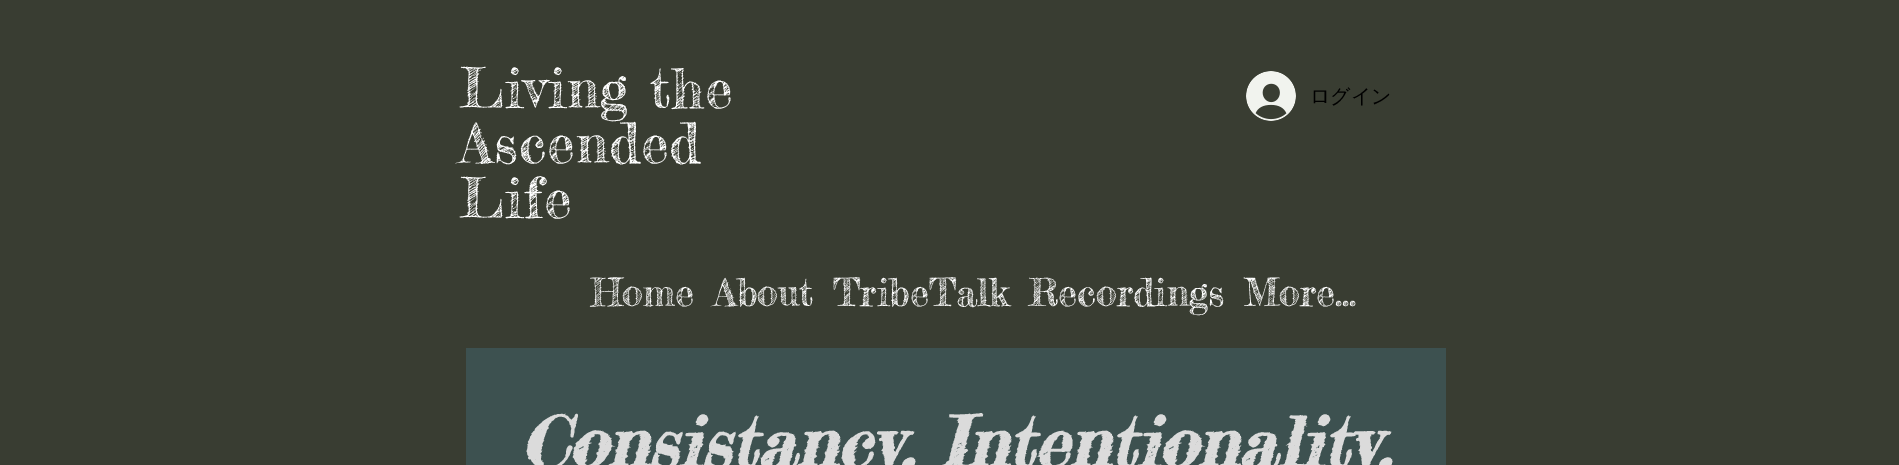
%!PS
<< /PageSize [1899 465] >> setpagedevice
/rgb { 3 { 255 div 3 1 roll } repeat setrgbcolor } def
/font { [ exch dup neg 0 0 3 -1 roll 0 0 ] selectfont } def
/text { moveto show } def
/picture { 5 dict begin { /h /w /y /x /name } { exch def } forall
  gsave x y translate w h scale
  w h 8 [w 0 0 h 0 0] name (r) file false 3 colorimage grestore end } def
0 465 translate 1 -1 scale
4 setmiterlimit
57 61 50 rgb
0 0 1899 465 rectfill
(img_01.rgb) 1246 71 50 50 picture
61 81 80 rgb
466 348 980 117 rectfill
/FrederickatheGreat-Regular 55 font
255 255 255 rgb
460 108 moveto 1.1 0 (Living the) ashow
460 163 moveto 1.1 0 (Ascended) ashow
460 218 moveto 1.1 0 (Life) ashow
/WenQuanYiZenHei-Medium 20 font
0 0 0 rgb
(ログイン) 1310 103 text
/FrederickatheGreat-Regular 38 font
255 255 255 rgb
(Home) 591 306 text
(About) 714 306 text
(TribeTalk) 833 306 text
(Recordings) 1029 306 text
(More...) 1244 306 text
/FrederickatheGreat-BoldItalic 70 font
219 219 219 rgb
(Consistancy, Intentionality,) 520 468 text
showpage
